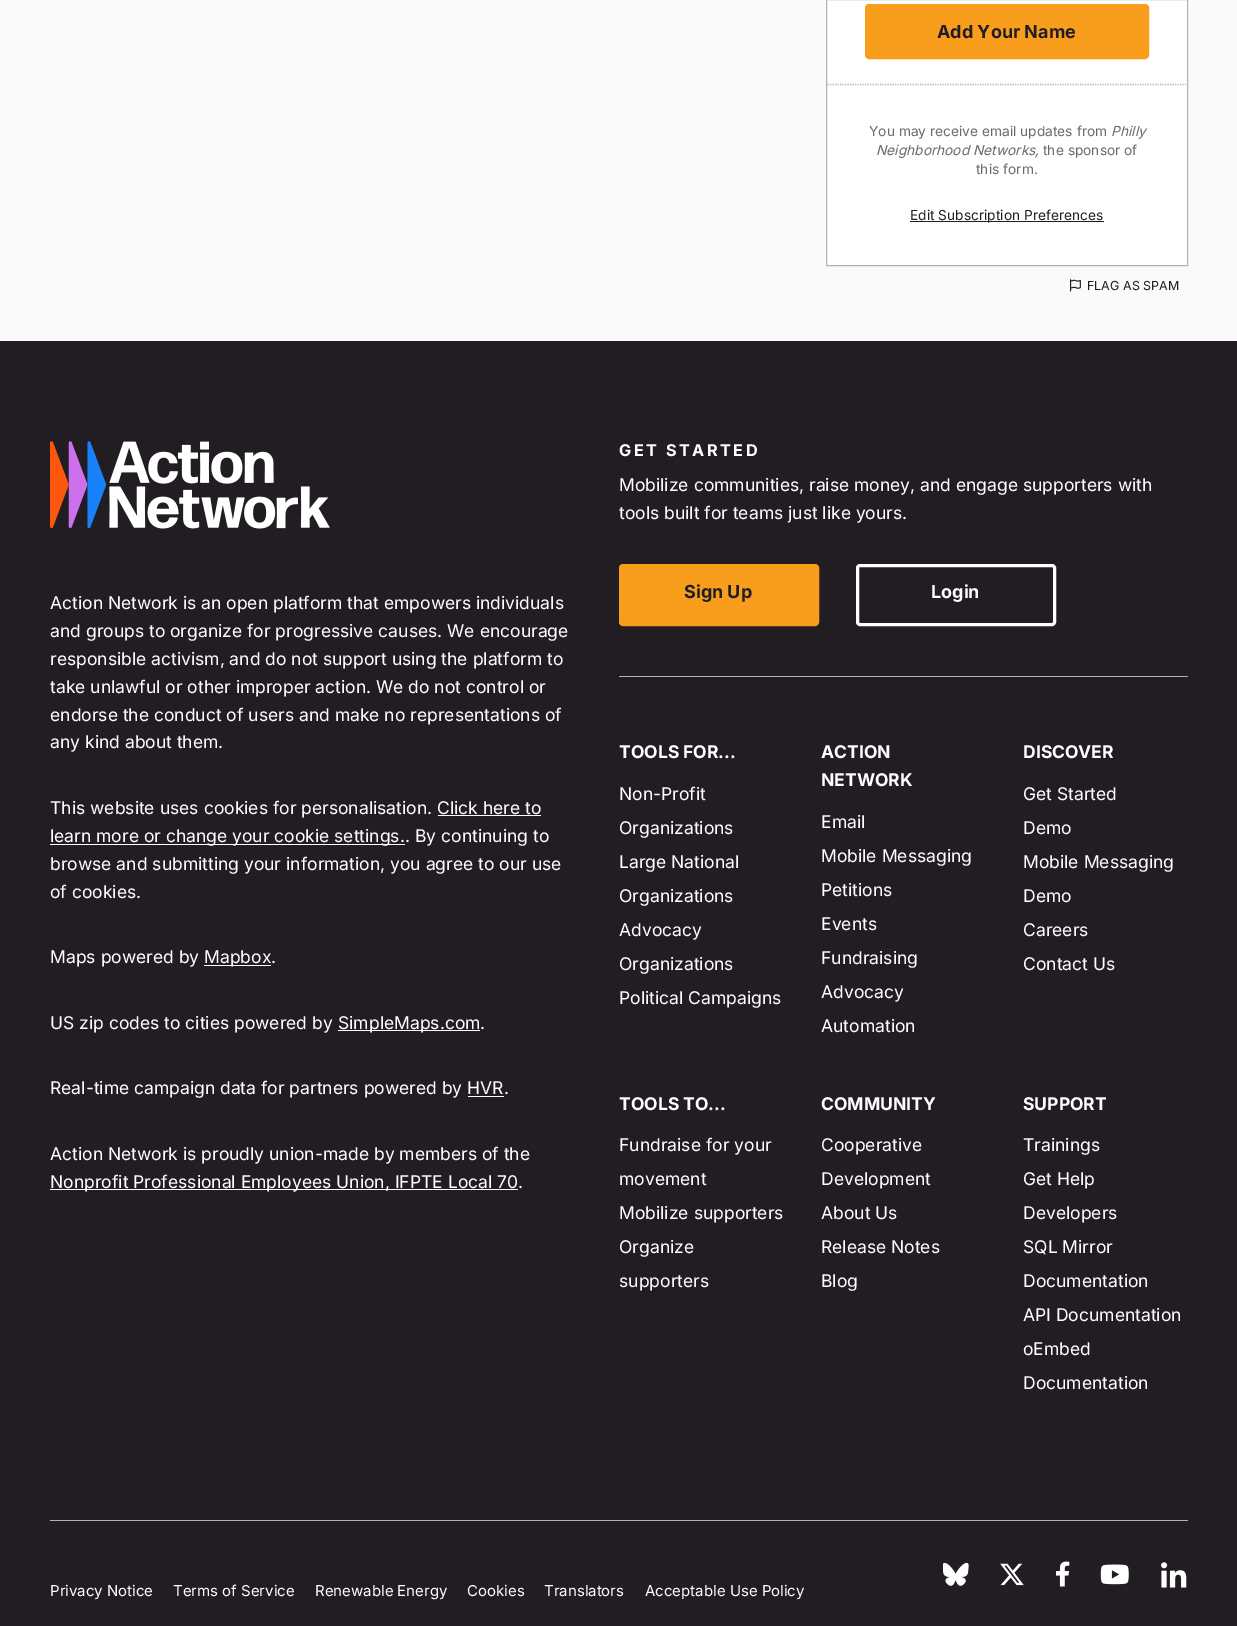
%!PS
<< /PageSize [1237 1626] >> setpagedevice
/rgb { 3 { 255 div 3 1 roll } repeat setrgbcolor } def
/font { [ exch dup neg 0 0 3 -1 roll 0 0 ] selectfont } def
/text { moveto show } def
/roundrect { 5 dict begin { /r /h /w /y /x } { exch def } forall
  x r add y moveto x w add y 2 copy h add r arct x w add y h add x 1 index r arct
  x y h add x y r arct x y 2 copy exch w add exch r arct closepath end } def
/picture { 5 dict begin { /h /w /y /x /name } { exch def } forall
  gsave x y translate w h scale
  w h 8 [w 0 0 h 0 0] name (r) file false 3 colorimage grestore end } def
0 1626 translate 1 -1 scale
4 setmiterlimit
33 29 34 rgb
0 0 1237 1626 rectfill
250 250 250 rgb
0 0 1237 341 rectfill
255 255 255 rgb
826.5 -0.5 moveto 361 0 rlineto 0 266 rlineto -361 0 rlineto closepath gsave fill grestore
179 179 179 rgb
stroke
248 158 28 rgb
866.5 5.5 281 52 2.5 roundrect gsave fill grestore
3 setlinewidth
stroke
179 179 179 rgb
1.2 setlinewidth
[1.25 1.25] 0 setdash
827.5 84.5 moveto 358.5 0 rlineto stroke
33 29 34 rgb
910 221 194 1 rectfill
(img_01.rgb) 1070 279 11 13 picture
(img_02.rgb) 50 441 280 88 picture
255 255 255 rgb
438 815 103 1 rectfill
50 844 355 1 rectfill
204 965 67 1 rectfill
338 1030 142 1 rectfill
468 1096 36 1 rectfill
50 1189 468 1 rectfill
248 158 28 rgb
620.5 565.5 197 59 2.5 roundrect gsave fill grestore
3 setlinewidth
[] 0 setdash
stroke
255 255 255 rgb
857.5 565.5 197 59 2.5 roundrect stroke
179 179 179 rgb
619 676 569 1 rectfill
50 1520 1138 1 rectfill
(img_03.rgb) 943 1562 26 24 picture
(img_04.rgb) 1000 1563 24 23 picture
(img_05.rgb) 1056 1561 14 26 picture
(img_06.rgb) 1100 1564 29 21 picture
(img_07.rgb) 1161 1562 26 26 picture
/Inter-Bold 18 font
33 29 34 rgb
(Add Your Name) 937 38 text
/Inter-Regular 13.75 font
108 105 108 rgb
(You may receive email updates from) 869 136 text
/Inter-Italic 13.75 font
(Philly) 1111 136 text
(Neighborhood Networks,) 876 155 text
/Inter-Regular 13.75 font
(the sponsor of) 1043 155 text
(this form.) 976 174 text
33 29 34 rgb
(Edit Subscription Preferences) 910 220 text
/Inter-Regular 12.5 font
(FLAG AS SPAM) 1087 290 text
/Inter-Regular 17.5 font
255 255 255 rgb
(Action Network is an open platform that empowers individuals) 50 609 text
(and groups to organize for progressive causes. We encourage) 50 637 text
(responsible activism, and do not support using the platform to) 50 665 text
(take unlawful or other improper action. We do not control or) 50 693 text
(endorse the conduct of users and make no representations of) 50 721 text
(any kind about them.) 50 748 text
(This website uses cookies for personalisation. Click here to) 50 814 text
(learn more or change your cookie settings.) 50 842 text
(. By continuing to) 405 842 text
(browse and submitting your information, you agree to our use) 50 870 text
(of cookies.) 50 898 text
(Maps powered by) 50 963 text
(Mapbox) 204 963 text
(.) 271 963 text
(US zip codes to cities powered by) 50 1029 text
(SimpleMaps.com) 338 1029 text
(.) 480 1029 text
(Real-time campaign data for partners powered by HVR) 50 1094 text
(.) 504 1094 text
(Action Network is proudly union-made by members of the) 50 1160 text
(Nonprofit Professional Employees Union, IFPTE Local 70) 50 1188 text
(.) 518 1188 text
/Inter-Bold 16.25 font
619 456 moveto 2.5 0 (GET STARTED) ashow
/Inter-Regular 17.5 font
(Mobilize communities, raise money, and engage supporters with) 619 491 text
(tools built for teams just like yours.) 619 519 text
/Inter-Bold 18 font
33 29 34 rgb
(Sign Up) 684 598 text
255 255 255 rgb
(Login) 931 598 text
/Inter-Bold 17.5 font
(TOOLS FOR...) 619 758 text
/Inter-Regular 17.5 font
(Non-Profit) 619 800 text
(Organizations) 619 834 text
(Large National) 619 868 text
(Organizations) 619 902 text
(Advocacy) 619 936 text
(Organizations) 619 970 text
(Political Campaigns) 619 1004 text
/Inter-Bold 17.5 font
(ACTION) 821 758 text
(NETWORK) 821 786 text
/Inter-Regular 17.5 font
(Email) 821 828 text
(Mobile Messaging) 821 862 text
(Petitions) 821 896 text
(Events) 821 930 text
(Fundraising) 821 964 text
(Advocacy) 821 998 text
(Automation) 821 1032 text
/Inter-Bold 17.5 font
(DISCOVER) 1023 758 text
/Inter-Regular 17.5 font
(Get Started) 1023 800 text
(Demo) 1023 834 text
(Mobile Messaging) 1023 868 text
(Demo) 1023 902 text
(Careers) 1023 936 text
(Contact Us) 1023 970 text
/Inter-Bold 17.5 font
(TOOLS TO...) 619 1110 text
/Inter-Regular 17.5 font
(Fundraise for your) 619 1151 text
(movement) 619 1185 text
(Mobilize supporters) 619 1219 text
(Organize) 619 1253 text
(supporters) 619 1287 text
/Inter-Bold 17.5 font
(COMMUNITY) 821 1110 text
/Inter-Regular 17.5 font
(Cooperative) 821 1151 text
(Development) 821 1185 text
(About Us) 821 1219 text
(Release Notes) 821 1253 text
(Blog) 821 1287 text
/Inter-Bold 17.5 font
(SUPPORT) 1023 1110 text
/Inter-Regular 17.5 font
(Trainings) 1023 1151 text
(Get Help) 1023 1185 text
(Developers) 1023 1219 text
(SQL Mirror) 1023 1253 text
(Documentation) 1023 1287 text
(API Documentation) 1023 1321 text
(oEmbed) 1023 1355 text
(Documentation) 1023 1389 text
/Inter-Regular 15 font
(Privacy Notice) 50 1596 text
(Terms of Service) 173 1596 text
(Renewable Energy) 315 1596 text
(Cookies) 467 1596 text
(Translators) 544 1596 text
(Acceptable Use Policy) 645 1596 text
showpage
